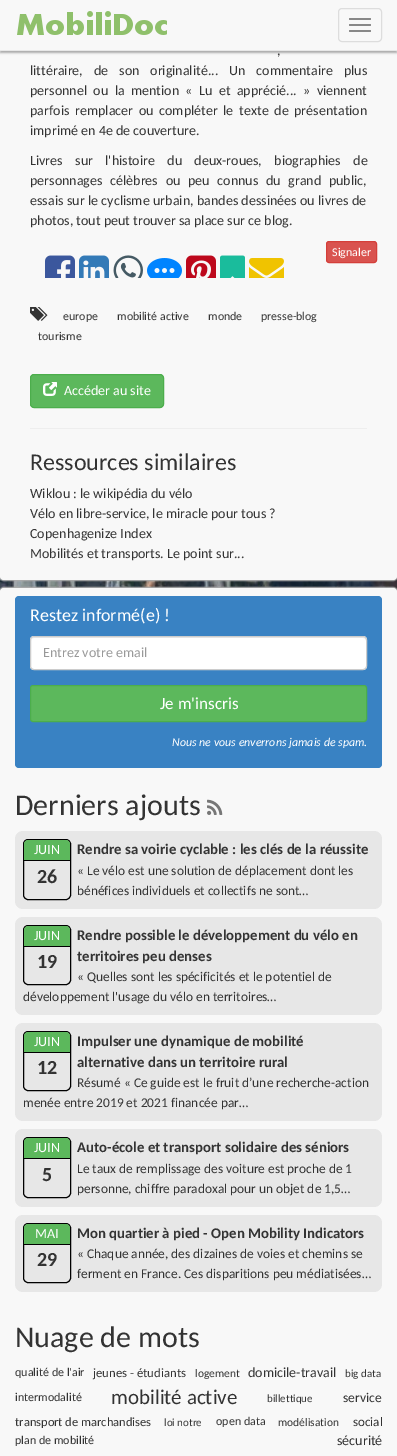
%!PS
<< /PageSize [397 1456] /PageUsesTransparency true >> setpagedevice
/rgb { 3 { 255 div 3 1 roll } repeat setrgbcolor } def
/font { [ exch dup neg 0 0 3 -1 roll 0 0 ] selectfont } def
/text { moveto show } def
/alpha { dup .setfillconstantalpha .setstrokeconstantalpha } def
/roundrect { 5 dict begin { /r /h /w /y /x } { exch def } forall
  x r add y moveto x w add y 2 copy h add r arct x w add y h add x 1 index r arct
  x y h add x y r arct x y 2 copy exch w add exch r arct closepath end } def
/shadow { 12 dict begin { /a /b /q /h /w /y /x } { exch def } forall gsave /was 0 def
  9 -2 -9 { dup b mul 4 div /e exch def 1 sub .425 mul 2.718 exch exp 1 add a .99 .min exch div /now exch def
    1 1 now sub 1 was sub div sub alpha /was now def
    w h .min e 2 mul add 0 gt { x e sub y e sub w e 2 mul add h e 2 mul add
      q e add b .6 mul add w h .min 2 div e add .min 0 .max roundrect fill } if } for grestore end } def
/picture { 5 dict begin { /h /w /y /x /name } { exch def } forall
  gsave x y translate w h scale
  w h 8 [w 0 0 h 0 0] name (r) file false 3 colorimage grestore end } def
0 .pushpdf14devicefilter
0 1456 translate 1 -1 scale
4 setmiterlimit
255 255 255 rgb
0 0 397 1456 rectfill
(img_01.rgb) 0 576 397 16 picture
170 170 170 rgb
-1 -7 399 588 5 0.5 1 shadow
248 248 248 rgb
0 -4 397 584 4 roundrect fill
170 170 170 rgb
0 2 397 51 0 1 1 shadow
248 248 248 rgb
0 0 397 50 rectfill
231 231 231 rgb
0 50 397 1 rectfill
(img_02.rgb) 17 11 150 24 picture
221 221 221 rgb
338.5 8.5 43 33 3.5 roundrect stroke
136 136 136 rgb
349 18 22 2 1 roundrect fill
349 24 22 2 1 roundrect fill
349 30 22 2 1 roundrect fill
217 83 79 rgb
326.5 241.5 50 21 2.5 roundrect gsave fill grestore
212 63 58 rgb
stroke
(img_03.rgb) 45 255 30 23 picture
(img_04.rgb) 79 255 30 23 picture
(img_05.rgb) 113 255 30 23 picture
(img_06.rgb) 147 258 35 20 picture
(img_07.rgb) 186 255 30 23 picture
(img_08.rgb) 220 255 25 23 picture
(img_09.rgb) 249 258 35 20 picture
(img_10.rgb) 30 307 18 14 picture
92 184 92 rgb
30.5 374.5 133 33 3.5 roundrect gsave fill grestore
76 174 76 rgb
stroke
(img_11.rgb) 43 382 14 14 picture
238 238 238 rgb
30 428 337 1 rectfill
170 170 170 rgb
-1 587 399 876 5 0.5 1 shadow
248 248 248 rgb
0 588 397 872 4 roundrect fill
57 130 195 rgb
15 596 367 172 4 roundrect fill
255 255 255 rgb
30 636 337 34 4 roundrect fill
236 236 236 rgb
34 638 moveto 329 0 rlineto 2 0 3 1 3 3 rcurveto 0 -2 -1 -4 -3 -4 rcurveto -329 0 rlineto -2 0 -3 2 -3 4 rcurveto 0 -2 1 -3 3 -3 rcurveto closepath fill
204 204 204 rgb
30.5 636.5 336 33 3.5 roundrect stroke
92 184 92 rgb
30.5 685.5 336 36 2.5 roundrect gsave fill grestore
76 174 76 rgb
stroke
(img_12.rgb) 207 799 16 16 picture
231 231 231 rgb
15 831 367 78 8 roundrect fill
0 0 0 rgb
23.5 839.5 47 60 4.5 roundrect stroke
92 184 92 rgb
28 840 moveto 38 0 rlineto 2 0 4 2 4 4 rcurveto 0 17 rlineto -46 0 rlineto 0 -17 rlineto 0 -2 2 -4 4 -4 rcurveto closepath fill
0 0 0 rgb
24 860 46 1 rectfill
231 231 231 rgb
15 917 367 98 8 roundrect fill
0 0 0 rgb
23.5 925.5 47 59 4.5 roundrect stroke
92 184 92 rgb
28 926 moveto 38 0 rlineto 2 0 4 2 4 4 rcurveto 0 17 rlineto -46 0 rlineto 0 -17 rlineto 0 -2 2 -4 4 -4 rcurveto closepath fill
0 0 0 rgb
24 946 46 1 rectfill
231 231 231 rgb
15 1023 367 98 8 roundrect fill
0 0 0 rgb
23.5 1031.5 47 59 4.5 roundrect stroke
92 184 92 rgb
28 1032 moveto 38 0 rlineto 2 0 4 2 4 4 rcurveto 0 17 rlineto -46 0 rlineto 0 -17 rlineto 0 -2 2 -4 4 -4 rcurveto closepath fill
0 0 0 rgb
24 1052 46 1 rectfill
231 231 231 rgb
15 1129 367 78 8 roundrect fill
0 0 0 rgb
23.5 1137.5 47 60 4.5 roundrect stroke
92 184 92 rgb
28 1138 moveto 38 0 rlineto 2 0 4 2 4 4 rcurveto 0 17 rlineto -46 0 rlineto 0 -17 rlineto 0 -2 2 -4 4 -4 rcurveto closepath fill
0 0 0 rgb
24 1158 46 1 rectfill
231 231 231 rgb
15 1215 367 77 8 roundrect fill
0 0 0 rgb
23.5 1223.5 47 59 4.5 roundrect stroke
92 184 92 rgb
28 1224 moveto 38 0 rlineto 2 0 4 2 4 4 rcurveto 0 17 rlineto -46 0 rlineto 0 -17 rlineto 0 -2 2 -4 4 -4 rcurveto closepath fill
0 0 0 rgb
24 1244 46 1 rectfill
/Carlito-Regular 14 font
51 51 51 rgb
277 55 moveto 4 0 32 (,) widthshow
30 75 moveto 7.75 0 32 (littéraire, de son originalité... Un commentaire plus) widthshow
30 95 moveto 3.25 0 32 (personnel ou la mention « Lu et apprécié... » viennent) widthshow
30 115 moveto 2.5 0 32 (parfois remplacer ou compléter le texte de présentation) widthshow
(imprimé en 4e de couverture.) 30 135 text
30 165 moveto 9.25 0 32 (Livres sur l'histoire du deux-roues, biographies de) widthshow
30 185 moveto 4.5 0 32 (personnages célèbres ou peu connus du grand public,) widthshow
30 205 moveto 0.25 0 32 (essais sur le cyclisme urbain, bandes dessinées ou livres de) widthshow
(photos, tout peut trouver sa place sur ce blog.) 30 225 text
/Carlito-Regular 12 font
255 255 255 rgb
(Signaler) 332 256 text
/Carlito-Regular 11.9 font
51 51 51 rgb
(europe) 63 320 text
(mobilité active) 117 320 text
(monde) 208 320 text
(presse-blog) 261 320 text
(tourisme) 38 340 text
/Carlito-Regular 14 font
255 255 255 rgb
(Accéder au site) 64 395 text
/Carlito-Regular 24 font
51 51 51 rgb
(Ressources similaires) 30 470 text
/Carlito-Regular 14 font
(Wiklou : le wikipédia du vélo) 30 498 text
(Vélo en libre-service, le miracle pour tous ?) 30 518 text
(Copenhagenize Index) 30 538 text
(Mobilités et transports. Le point sur...) 30 558 text
/Carlito-Regular 18 font
255 255 255 rgb
(Restez informé\(e\) !) 30 621 text
/Carlito-Regular 14 font
153 153 153 rgb
(Entrez votre email) 43 657 text
/Carlito-Regular 17 font
255 255 255 rgb
(Je m'inscris) 160 709 text
/Carlito-Italic 11.9 font
(Nous ne vous enverrons jamais de spam.) 172 746 text
/Carlito-Regular 30 font
51 51 51 rgb
(Derniers ajouts) 15 815 text
/Carlito-Regular 14 font
255 255 255 rgb
(JUIN) 34 854 text
/Carlito-Bold 20 font
51 51 51 rgb
(26) 37 883 text
/Carlito-Bold 14.8 font
(Rendre sa voirie cyclable : les clés de la réussite) 77 854 text
/Carlito-Regular 13.4 font
(« Le vélo est une solution de déplacement dont les) 77 875 text
(bénéfices individuels et collectifs ne sont…) 77 895 text
/Carlito-Bold 14.8 font
(Rendre possible le développement du vélo en) 77 940 text
(territoires peu denses) 77 961 text
/Carlito-Regular 13.4 font
(« Quelles sont les spécificités et le potentiel de) 77 981 text
(développement l'usage du vélo en territoires…) 23 1001 text
/Carlito-Regular 14 font
255 255 255 rgb
(JUIN) 34 940 text
/Carlito-Bold 20 font
51 51 51 rgb
(19) 37 968 text
/Carlito-Bold 14.8 font
(Impulser une dynamique de mobilité) 77 1046 text
(alternative dans un territoire rural) 77 1067 text
/Carlito-Regular 13.4 font
(Résumé « Ce guide est le fruit d’une recherche-action) 77 1087 text
(menée entre 2019 et 2021 financée par…) 23 1107 text
/Carlito-Regular 14 font
255 255 255 rgb
(JUIN) 34 1046 text
/Carlito-Bold 20 font
51 51 51 rgb
(12) 37 1074 text
/Carlito-Regular 14 font
255 255 255 rgb
(JUIN) 34 1152 text
/Carlito-Bold 20 font
51 51 51 rgb
(5) 42 1181 text
/Carlito-Bold 14.8 font
(Auto-école et transport solidaire des séniors) 77 1152 text
/Carlito-Regular 13.4 font
(Le taux de remplissage des voiture est proche de 1) 77 1173 text
(personne, chiffre paradoxal pour un objet de 1,5…) 77 1193 text
/Carlito-Regular 14 font
255 255 255 rgb
(MAI) 35 1238 text
/Carlito-Bold 20 font
51 51 51 rgb
(29) 37 1266 text
/Carlito-Bold 14.8 font
(Mon quartier à pied - Open Mobility Indicators) 77 1238 text
/Carlito-Regular 13.4 font
(« Chaque année, des dizaines de voies et chemins se) 77 1258 text
(ferment en France. Ces disparitions peu médiatisées…) 77 1278 text
/Carlito-Regular 30 font
(Nuage de mots) 15 1347 text
/Carlito-Regular 12 font
(qualité de l'air) 15 1376 text
/Carlito-Regular 12.75 font
(jeunes - étudiants) 93 1377 text
/Carlito-Regular 11.5 font
(logement) 195 1377 text
/Carlito-Regular 14 font
(domicile-travail) 248 1377 text
/Carlito-Regular 11 font
(big data) 345 1377 text
/Carlito-Regular 12 font
(intermodalité) 15 1401 text
/Carlito-Regular 21 font
(mobilité active) 111 1404 text
/Carlito-Regular 11 font
(billettique) 267 1402 text
/Carlito-Regular 13.5 font
(service) 343 1402 text
/Carlito-Regular 12.5 font
(transport de marchandises) 15 1426 text
/Carlito-Regular 11 font
(loi notre) 164 1426 text
/Carlito-Regular 12 font
(open data) 216 1425 text
/Carlito-Regular 11.5 font
(modélisation) 278 1426 text
/Carlito-Regular 13 font
(social) 353 1426 text
/Carlito-Regular 12 font
(plan de mobilité) 15 1444 text
/Carlito-Regular 14 font
(sécurité) 337 1445 text
.poppdf14devicefilter showpage
